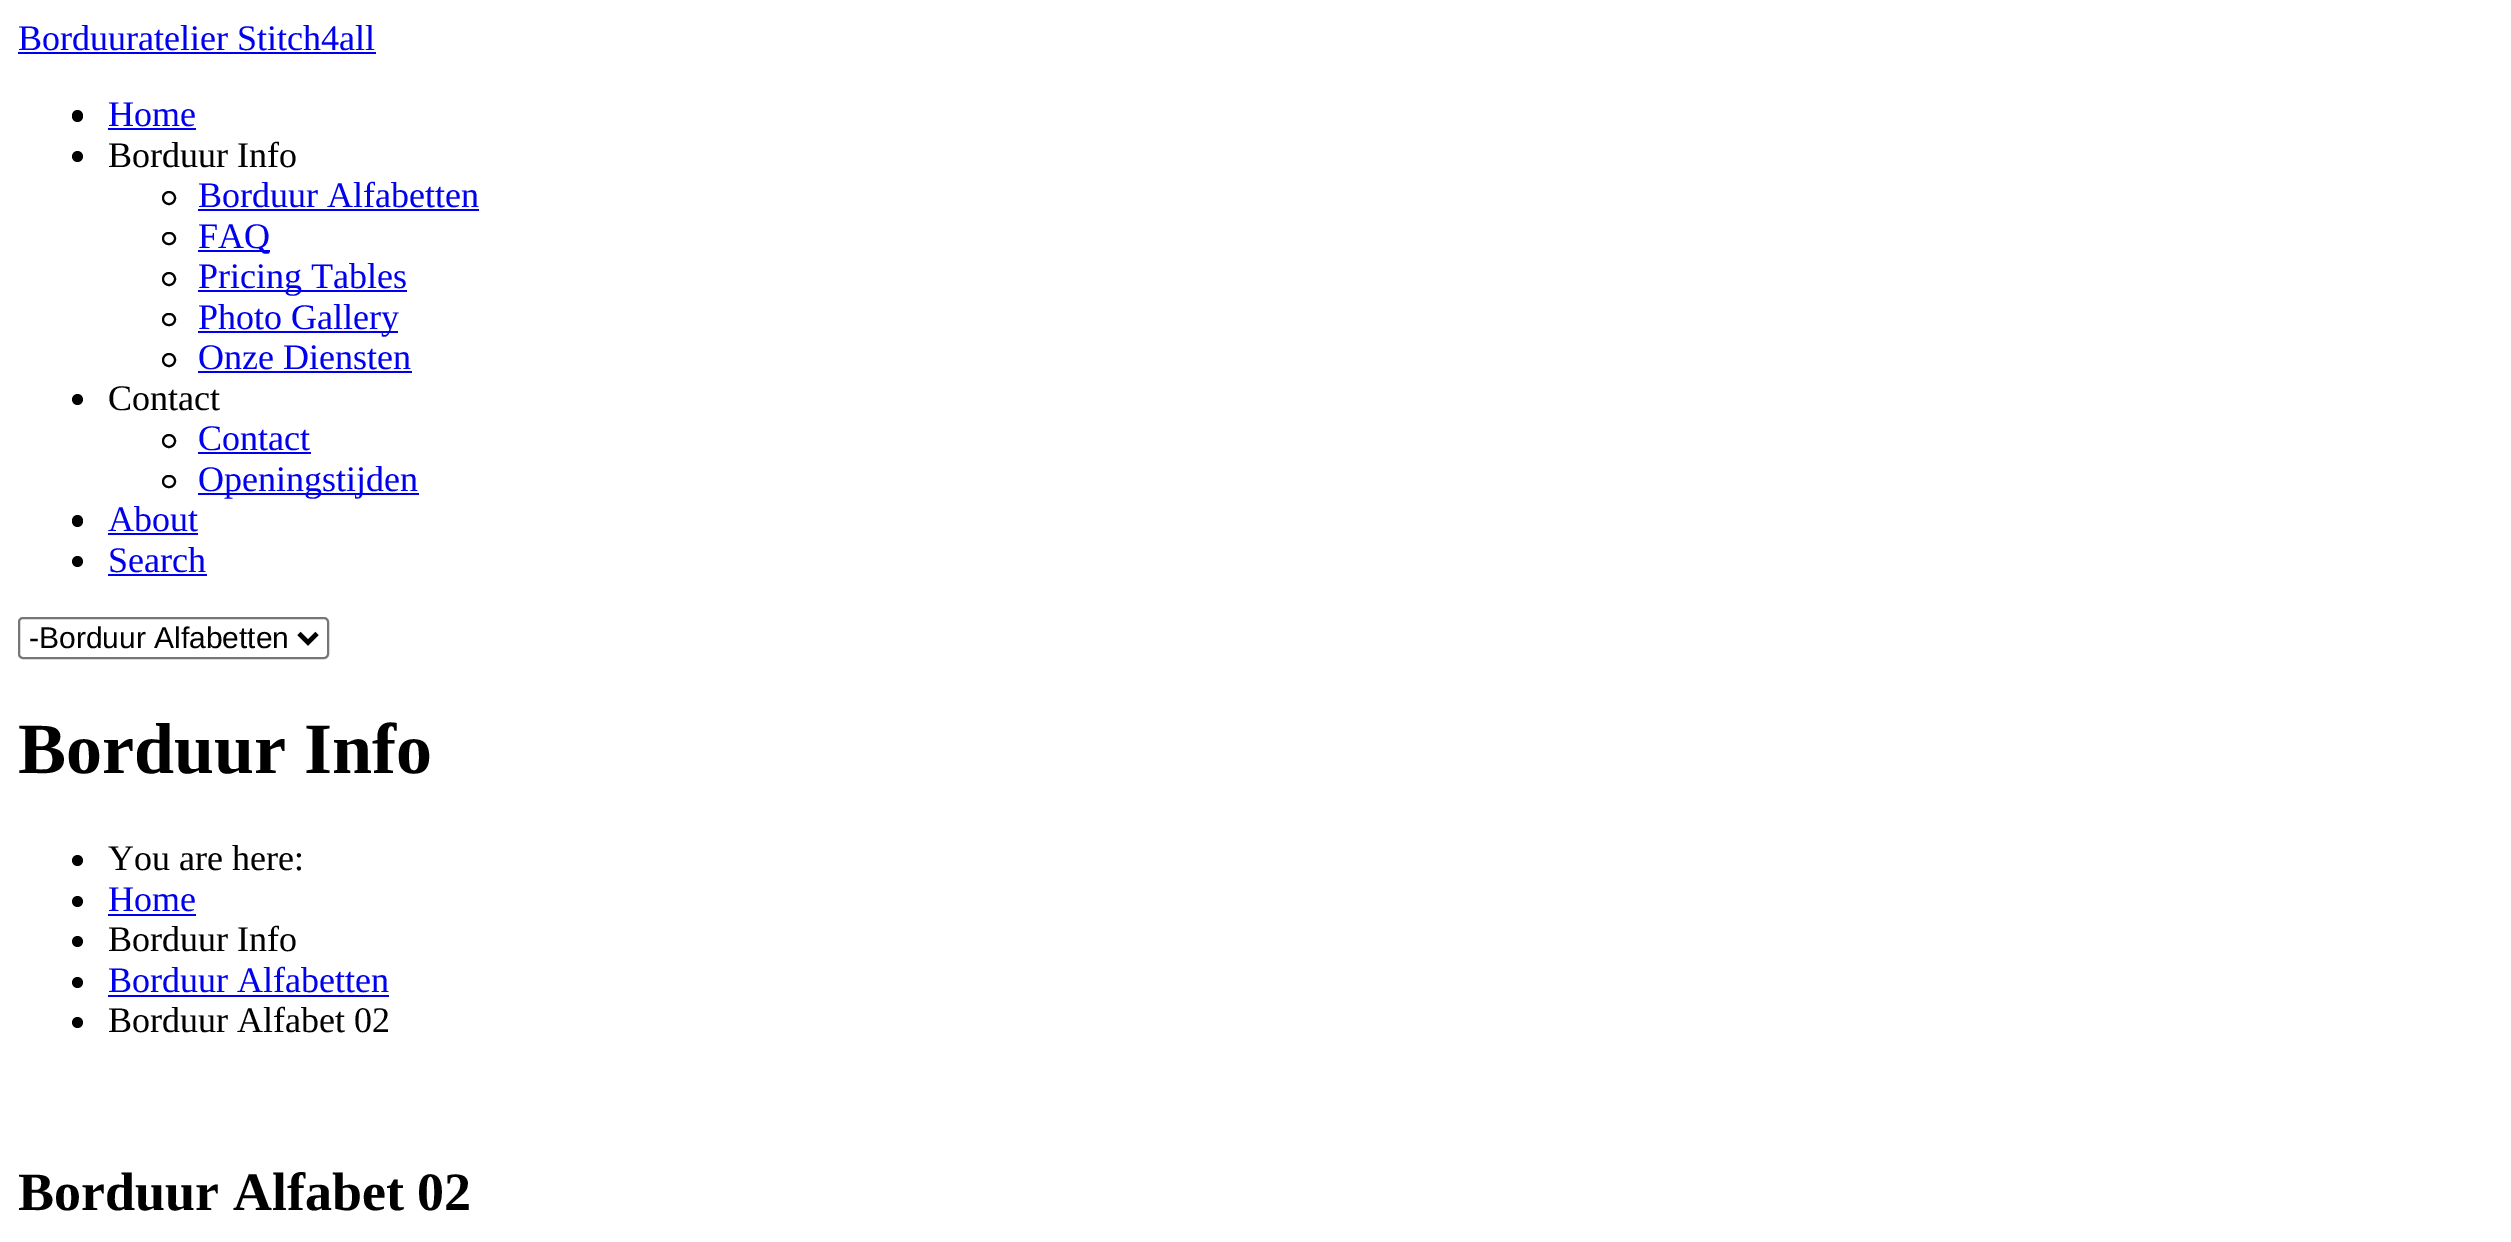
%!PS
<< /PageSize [2511 1242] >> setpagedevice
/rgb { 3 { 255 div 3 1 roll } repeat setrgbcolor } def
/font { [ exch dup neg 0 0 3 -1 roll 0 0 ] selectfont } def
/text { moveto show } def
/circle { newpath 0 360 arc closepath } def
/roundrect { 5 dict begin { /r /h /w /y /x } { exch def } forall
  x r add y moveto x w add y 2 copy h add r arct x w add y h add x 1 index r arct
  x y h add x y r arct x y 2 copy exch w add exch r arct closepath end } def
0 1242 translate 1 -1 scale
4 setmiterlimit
255 255 255 rgb
0 0 2511 1242 rectfill
0 0 238 rgb
18 52 358 2 rectfill
0 0 0 rgb
72 110 11 12 5.5 roundrect fill
0 0 238 rgb
108 128 88 2 rectfill
0 0 0 rgb
77.5 156.5 5.5 circle fill
2 setlinewidth
169 198 6 circle stroke
0 0 238 rgb
198 209 281 2 rectfill
0 0 0 rgb
163 233 12 11 5.5 roundrect stroke
0 0 238 rgb
198 250 72 2 rectfill
0 0 0 rgb
169 279 6 circle stroke
0 0 238 rgb
198 290 209 2 rectfill
0 0 0 rgb
163 314 12 11 5.5 roundrect stroke
0 0 238 rgb
198 331 200 2 rectfill
0 0 0 rgb
169 360 6 circle stroke
0 0 238 rgb
198 371 214 2 rectfill
0 0 0 rgb
77.5 399.5 5.5 circle fill
169 441 6 circle stroke
0 0 238 rgb
198 452 113 2 rectfill
0 0 0 rgb
163 476 12 11 5.5 roundrect stroke
0 0 238 rgb
198 493 221 2 rectfill
0 0 0 rgb
72 515 11 12 5.5 roundrect fill
0 0 238 rgb
108 533 90 2 rectfill
0 0 0 rgb
77.5 561.5 5.5 circle fill
0 0 238 rgb
108 574 99 2 rectfill
118 118 118 rgb
19 618 309 40 4 roundrect stroke
0 0 0 rgb
4.5 setlinewidth
299 633.5 moveto 9 9 rlineto 9 -9 rlineto stroke
77.5 860.5 5.5 circle fill
77.5 901.5 5.5 circle fill
0 0 238 rgb
108 914 88 2 rectfill
0 0 0 rgb
77.5 941.5 5.5 circle fill
77.5 982.5 5.5 circle fill
0 0 238 rgb
108 995 281 2 rectfill
0 0 0 rgb
77.5 1022.5 5.5 circle fill
/LiberationSerif-Regular 36 font
0 0 238 rgb
(Borduuratelier Stitch4all) 18 50 text
(Home) 108 126 text
0 0 0 rgb
(Borduur Info) 108 167 text
0 0 238 rgb
(Borduur Alfabetten) 198 207 text
(FAQ) 198 248 text
(Pricing Tables) 198 288 text
(Photo Gallery) 198 329 text
(Onze Diensten) 198 369 text
0 0 0 rgb
(Contact) 108 410 text
0 0 238 rgb
(Contact) 198 450 text
(Openingstijden) 198 491 text
(About) 108 531 text
(Search) 108 572 text
/LiberationSans-Regular 30 font
0 0 0 rgb
(-Borduur Alfabetten) 29 648 text
/LiberationSerif-Bold 72 font
(Borduur Info) 18 773 text
/LiberationSerif-Regular 36 font
(You are here:) 108 870 text
0 0 238 rgb
(Home) 108 911 text
0 0 0 rgb
(Borduur Info) 108 951 text
0 0 238 rgb
(Borduur Alfabetten) 108 992 text
0 0 0 rgb
(Borduur Alfabet 02) 108 1032 text
/LiberationSerif-Bold 54 font
(Borduur Alfabet 02) 18 1210 text
showpage
